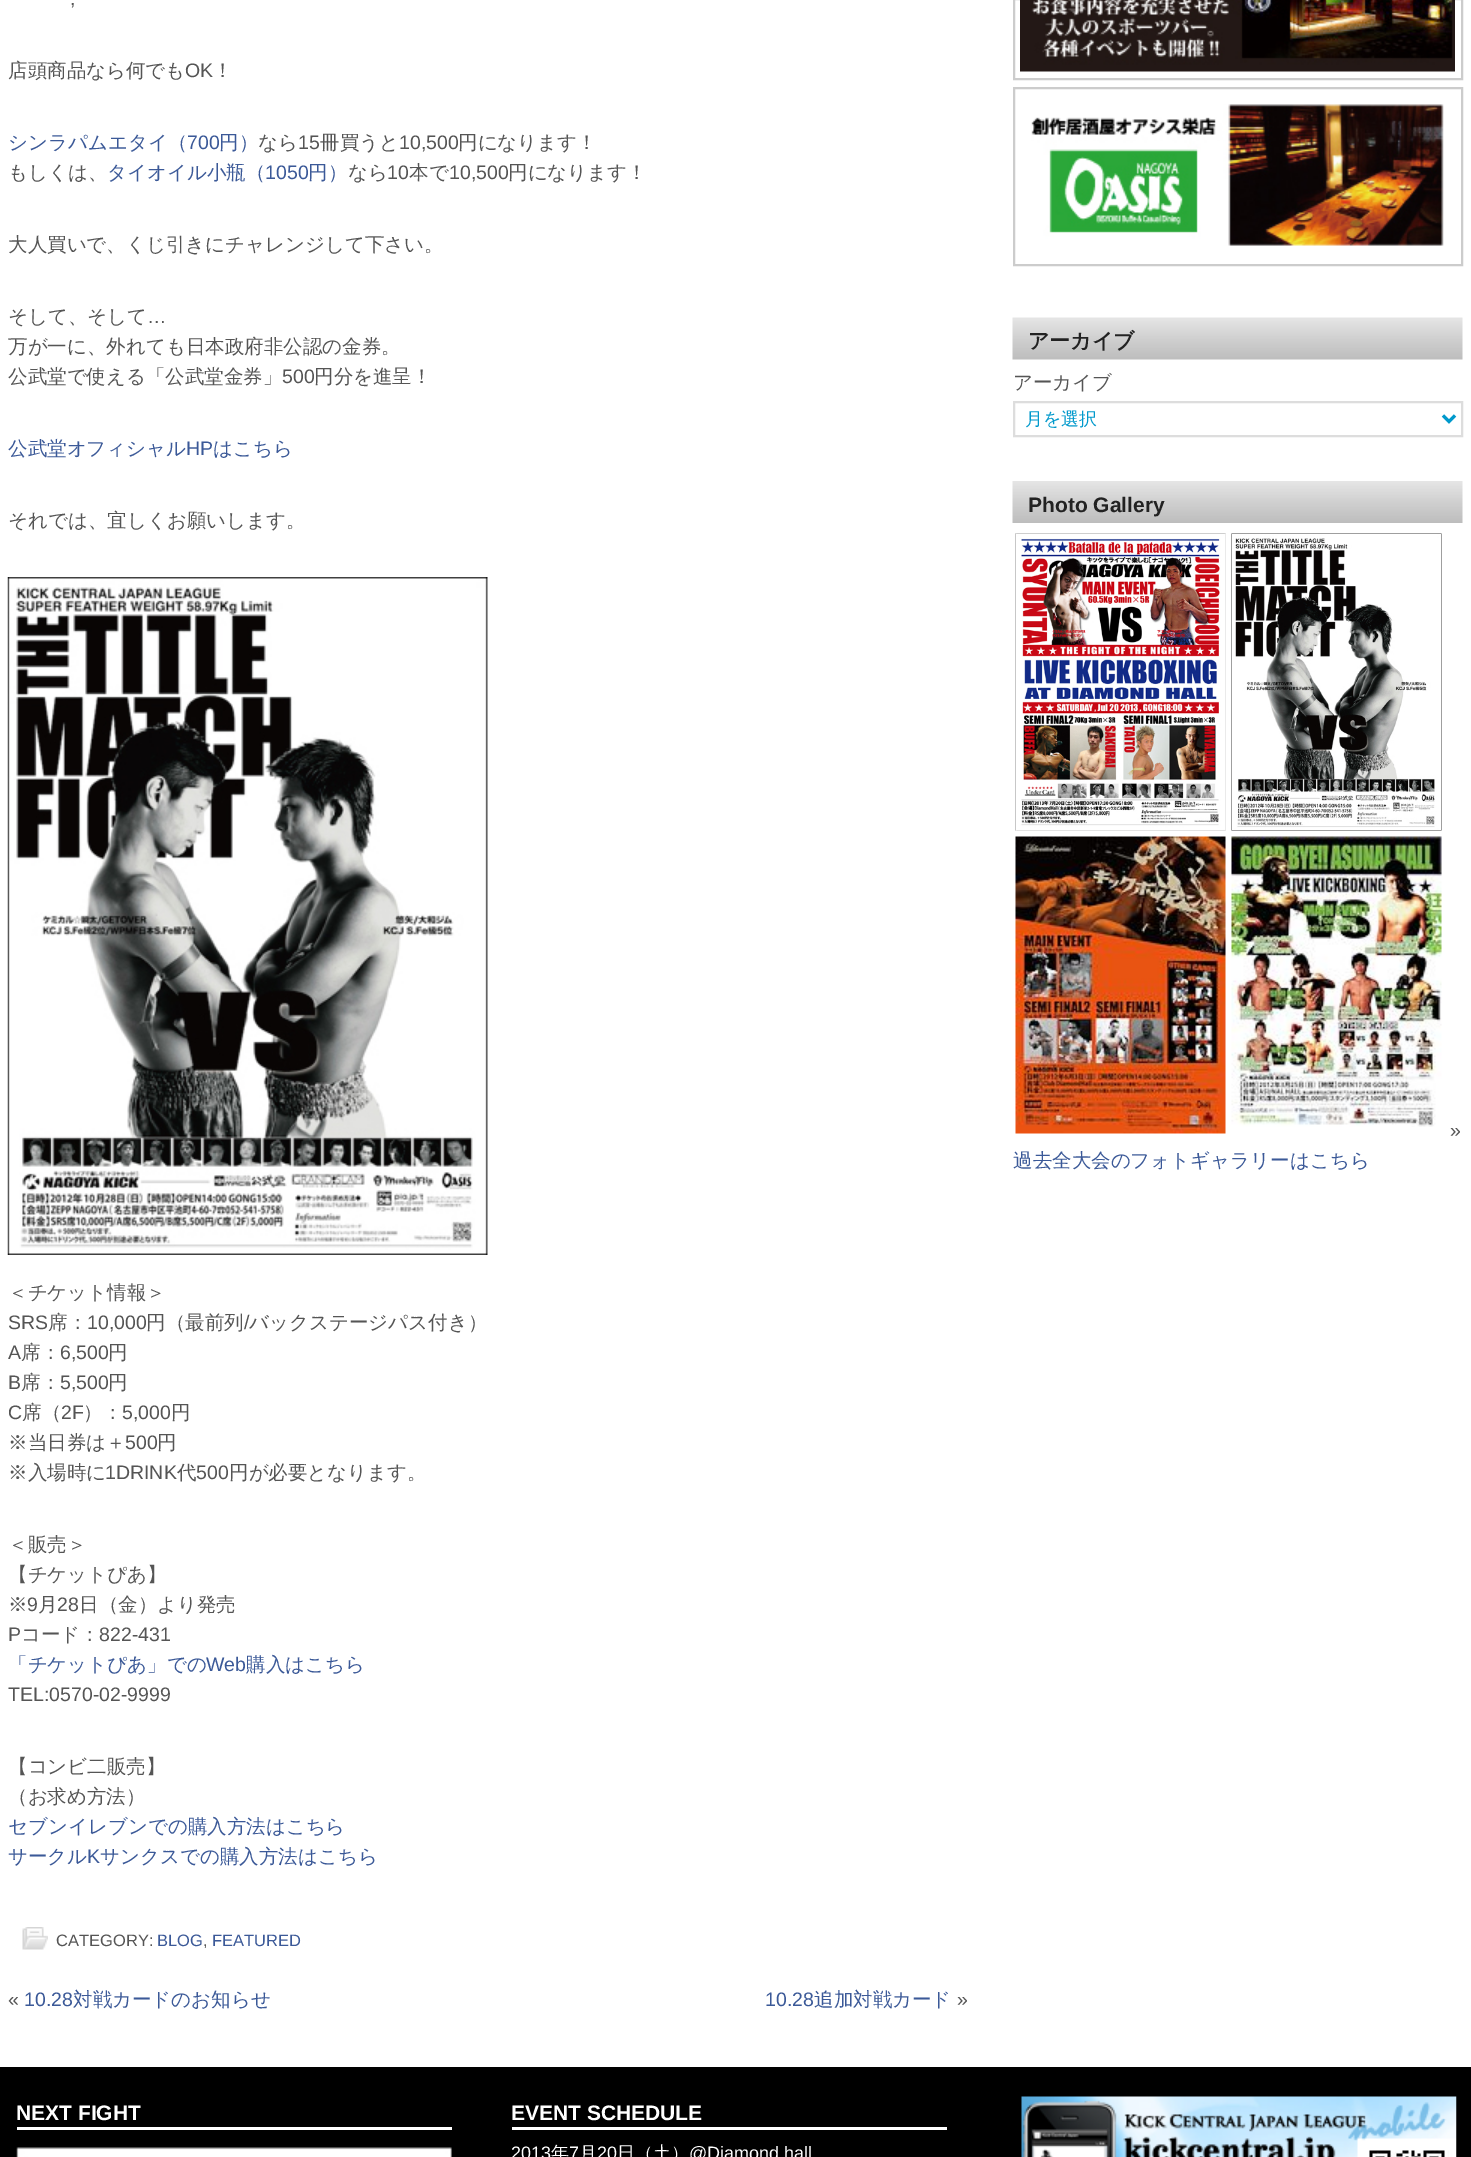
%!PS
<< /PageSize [1471 2157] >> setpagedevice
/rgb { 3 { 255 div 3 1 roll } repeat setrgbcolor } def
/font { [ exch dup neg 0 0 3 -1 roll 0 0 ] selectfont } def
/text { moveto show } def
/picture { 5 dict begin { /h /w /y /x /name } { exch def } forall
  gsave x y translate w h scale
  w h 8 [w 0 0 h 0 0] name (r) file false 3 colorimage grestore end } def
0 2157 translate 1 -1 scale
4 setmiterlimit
0 0 0 rgb
0 0 1471 2157 rectfill
255 255 255 rgb
0 0 1471 2067 rectfill
(img_01.rgb) 7 577 481 678 picture
(img_02.rgb) 22 1927 26 23 picture
204 204 204 rgb
2 setlinewidth
1014 -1 448 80 rectstroke
(img_03.rgb) 1020 0 435 72 picture
1014 88 448 177 rectstroke
(img_04.rgb) 1031 104 413 142 picture
(img_05.rgb) 1012 317 451 43 picture
221 221 221 rgb
1014 402 448 34 rectstroke
0 153 204 rgb
3 setlinewidth
1443 415.5 moveto 6 6 rlineto 6 -6 rlineto stroke
(img_06.rgb) 1012 481 451 42 picture
(img_07.rgb) 1015 533 211 298 picture
(img_08.rgb) 1231 533 211 298 picture
(img_09.rgb) 1015 836 211 298 picture
(img_10.rgb) 1231 836 211 291 picture
255 255 255 rgb
17 2127 435 3 rectfill
(img_11.rgb) 16 2147 436 10 picture
512 2127 435 3 rectfill
(img_12.rgb) 1021 2096 436 61 picture
/LiberationSans-Regular 19.5 font
85 85 85 rgb
(,) 70 5 text
/WenQuanYiZenHei-Medium 19.5 font
(店頭商品なら何でも) 8 77 text
/LiberationSans-Regular 19.5 font
(OK) 185 77 text
/WenQuanYiZenHei-Medium 19.5 font
(！) 213 77 text
59 89 152 rgb
(シンラパムエタイ（) 8 149 text
/LiberationSans-Regular 19.5 font
(700) 187 149 text
/WenQuanYiZenHei-Medium 19.5 font
(円）) 219 149 text
85 85 85 rgb
(なら) 258 149 text
/LiberationSans-Regular 19.5 font
(15) 298 149 text
/WenQuanYiZenHei-Medium 19.5 font
(冊買うと) 320 149 text
/LiberationSans-Regular 19.5 font
(10,500) 399 149 text
/WenQuanYiZenHei-Medium 19.5 font
(円になります！) 458 149 text
(もしくは、) 8 179 text
59 89 152 rgb
(タイオイル小瓶（) 107 179 text
/LiberationSans-Regular 19.5 font
(1050) 265 179 text
/WenQuanYiZenHei-Medium 19.5 font
(円）) 308 179 text
85 85 85 rgb
(なら) 348 179 text
/LiberationSans-Regular 19.5 font
(10) 387 179 text
/WenQuanYiZenHei-Medium 19.5 font
(本で) 409 179 text
/LiberationSans-Regular 19.5 font
(10,500) 449 179 text
/WenQuanYiZenHei-Medium 19.5 font
(円になります！) 508 179 text
(大人買いで、くじ引きにチャレンジして下さい。) 8 251 text
(そして、そして) 8 323 text
/LiberationSans-Regular 19.5 font
(…) 147 323 text
/WenQuanYiZenHei-Medium 19.5 font
(万が一に、外れても日本政府非公認の金券。) 8 353 text
(公武堂で使える「公武堂金券」) 8 383 text
/LiberationSans-Regular 19.5 font
(500) 282 383 text
/WenQuanYiZenHei-Medium 19.5 font
(円分を進呈！) 314 383 text
59 89 152 rgb
(公武堂オフィシャル) 8 455 text
/LiberationSans-Regular 19.5 font
(HP) 186 455 text
/WenQuanYiZenHei-Medium 19.5 font
(はこちら) 213 455 text
85 85 85 rgb
(それでは、宜しくお願いします。) 8 527 text
(＜チケット情報＞) 8 1299 text
/LiberationSans-Regular 19.5 font
(SRS) 8 1329 text
/WenQuanYiZenHei-Medium 19.5 font
(席：) 48 1329 text
/LiberationSans-Regular 19.5 font
(10,000) 87 1329 text
/WenQuanYiZenHei-Medium 19.5 font
(円（最前列) 146 1329 text
/LiberationSans-Regular 19.5 font
(/) 244 1329 text
/WenQuanYiZenHei-Medium 19.5 font
(バックステージパス付き）) 249 1329 text
/LiberationSans-Regular 19.5 font
(A) 8 1359 text
/WenQuanYiZenHei-Medium 19.5 font
(席：) 21 1359 text
/LiberationSans-Regular 19.5 font
(6,500) 60 1359 text
/WenQuanYiZenHei-Medium 19.5 font
(円) 108 1359 text
/LiberationSans-Regular 19.5 font
(B) 8 1389 text
/WenQuanYiZenHei-Medium 19.5 font
(席：) 21 1389 text
/LiberationSans-Regular 19.5 font
(5,500) 60 1389 text
/WenQuanYiZenHei-Medium 19.5 font
(円) 108 1389 text
/LiberationSans-Regular 19.5 font
(C) 8 1419 text
/WenQuanYiZenHei-Medium 19.5 font
(席（) 22 1419 text
/LiberationSans-Regular 19.5 font
(2F) 61 1419 text
/WenQuanYiZenHei-Medium 19.5 font
(）：) 83 1419 text
/LiberationSans-Regular 19.5 font
(5,000) 122 1419 text
/WenQuanYiZenHei-Medium 19.5 font
(円) 171 1419 text
(※当日券は＋) 8 1449 text
/LiberationSans-Regular 19.5 font
(500) 125 1449 text
/WenQuanYiZenHei-Medium 19.5 font
(円) 157 1449 text
(※入場時に) 8 1479 text
/LiberationSans-Regular 19.5 font
(1DRINK) 105 1479 text
/WenQuanYiZenHei-Medium 19.5 font
(代) 177 1479 text
/LiberationSans-Regular 19.5 font
(500) 196 1479 text
/WenQuanYiZenHei-Medium 19.5 font
(円が必要となります。) 229 1479 text
(＜販売＞) 8 1551 text
(【チケットぴあ】) 8 1581 text
(※) 8 1611 text
/LiberationSans-Regular 19.5 font
(9) 27 1611 text
/WenQuanYiZenHei-Medium 19.5 font
(月) 38 1611 text
/LiberationSans-Regular 19.5 font
(28) 57 1611 text
/WenQuanYiZenHei-Medium 19.5 font
(日（金）より発売) 79 1611 text
/LiberationSans-Regular 19.5 font
(P) 8 1641 text
/WenQuanYiZenHei-Medium 19.5 font
(コード：) 21 1641 text
/LiberationSans-Regular 19.5 font
(822-431) 99 1641 text
/WenQuanYiZenHei-Medium 19.5 font
59 89 152 rgb
(「チケットぴあ」での) 8 1671 text
/LiberationSans-Regular 19.5 font
(Web) 206 1671 text
/WenQuanYiZenHei-Medium 19.5 font
(購入はこちら) 246 1671 text
/LiberationSans-Regular 19.5 font
85 85 85 rgb
(TEL:0570-02-9999) 8 1701 text
/WenQuanYiZenHei-Medium 19.5 font
(【コンビ二販売】) 8 1773 text
(（お求め方法）) 8 1803 text
59 89 152 rgb
(セブンイレブンでの購入方法はこちら) 8 1833 text
(サークル) 8 1863 text
/LiberationSans-Regular 19.5 font
(K) 87 1863 text
/WenQuanYiZenHei-Medium 19.5 font
(サンクスでの購入方法はこちら) 100 1863 text
/LiberationSans-Regular 16.5 font
85 85 85 rgb
(CATEGORY:) 56 1946 text
59 89 152 rgb
(BLOG) 157 1946 text
85 85 85 rgb
(,) 203 1946 text
59 89 152 rgb
(FEATURED) 212 1946 text
/LiberationSans-Regular 19.5 font
85 85 85 rgb
(«) 8 2006 text
59 89 152 rgb
(10.28) 24 2006 text
/WenQuanYiZenHei-Medium 19.5 font
(対戦カードのお知らせ) 73 2006 text
/LiberationSans-Regular 19.5 font
(10.28) 765 2006 text
/WenQuanYiZenHei-Medium 19.5 font
(追加対戦カード) 814 2006 text
/LiberationSans-Regular 19.5 font
85 85 85 rgb
(») 957 2006 text
/WenQuanYiZenHei-Bold 21 font
34 34 34 rgb
(アーカイブ) 1028 348 text
/WenQuanYiZenHei-Medium 19.5 font
85 85 85 rgb
(アーカイブ) 1013 389 text
/WenQuanYiZenHei-Medium 18 font
0 153 204 rgb
(月を選択) 1025 425 text
/LiberationSans-Bold 21 font
34 34 34 rgb
(Photo Gallery) 1028 512 text
/LiberationSans-Regular 19.5 font
85 85 85 rgb
(») 1450 1137 text
/WenQuanYiZenHei-Medium 19.5 font
59 89 152 rgb
(過去全大会のフォトギャラリーはこちら) 1013 1167 text
/LiberationSans-Bold 21 font
255 255 255 rgb
(NEXT FIGHT) 16 2120 text
(EVENT SCHEDULE) 511 2120 text
/LiberationSans-Regular 18 font
(2013) 511 2159 text
/WenQuanYiZenHei-Medium 18 font
(年) 551 2159 text
/LiberationSans-Regular 18 font
(7) 569 2159 text
/WenQuanYiZenHei-Medium 18 font
(月) 579 2159 text
/LiberationSans-Regular 18 font
(20) 597 2159 text
/WenQuanYiZenHei-Medium 18 font
(日（土）) 617 2159 text
/LiberationSans-Regular 18 font
(@Diamond hall) 689 2159 text
showpage
